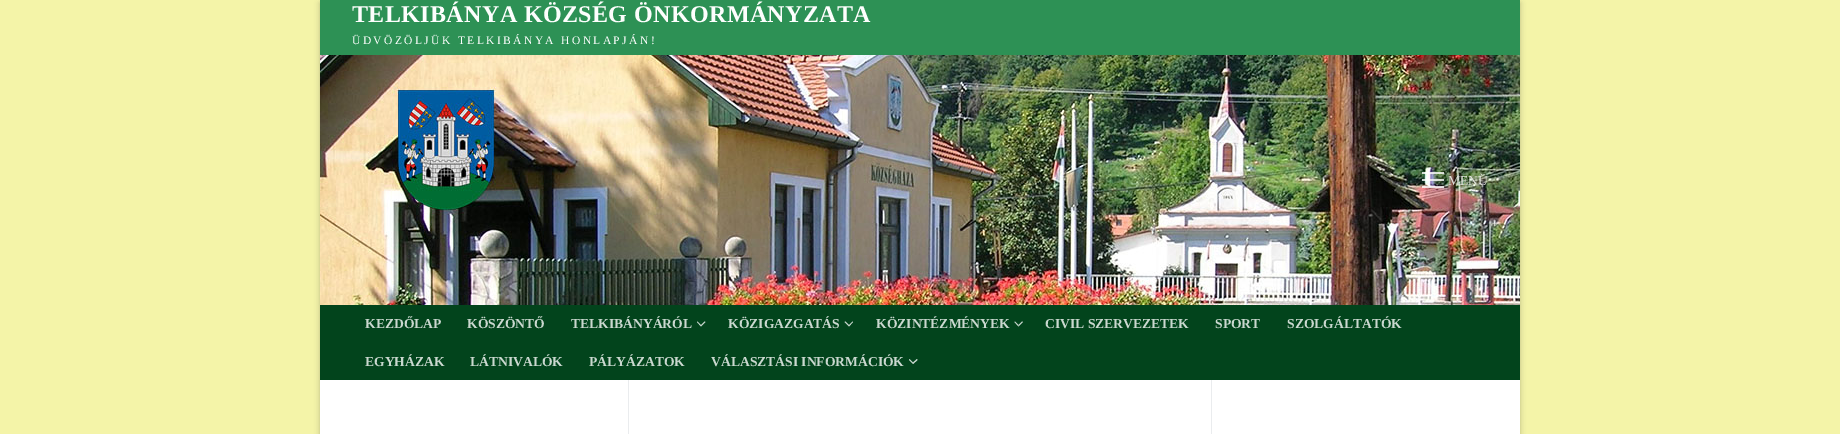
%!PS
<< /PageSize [1840 434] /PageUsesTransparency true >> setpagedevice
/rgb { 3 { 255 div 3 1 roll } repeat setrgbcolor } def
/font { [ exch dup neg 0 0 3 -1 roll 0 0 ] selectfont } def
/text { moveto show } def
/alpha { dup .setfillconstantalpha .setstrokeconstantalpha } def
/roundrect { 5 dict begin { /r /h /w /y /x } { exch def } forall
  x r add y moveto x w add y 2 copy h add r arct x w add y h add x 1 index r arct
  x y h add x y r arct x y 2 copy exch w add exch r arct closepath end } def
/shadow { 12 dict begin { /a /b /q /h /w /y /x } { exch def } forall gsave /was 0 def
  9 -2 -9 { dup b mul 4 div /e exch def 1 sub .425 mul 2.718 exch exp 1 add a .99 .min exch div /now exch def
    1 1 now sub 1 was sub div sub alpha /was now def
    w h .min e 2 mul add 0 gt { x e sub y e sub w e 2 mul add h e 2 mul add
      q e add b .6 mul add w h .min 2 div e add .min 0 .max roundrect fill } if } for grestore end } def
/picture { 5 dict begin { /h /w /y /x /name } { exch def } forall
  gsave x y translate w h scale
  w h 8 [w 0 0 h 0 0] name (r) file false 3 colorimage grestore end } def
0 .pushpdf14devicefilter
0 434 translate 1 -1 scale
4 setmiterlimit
244 244 168 rgb
0 0 1840 434 rectfill
0 0 0 rgb
320 3 1200 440 0 3 0.23 shadow
45 145 85 rgb
320 0 1200 55 rectfill
(img_01.rgb) 320 55 1200 250 picture
0.79 alpha
255 255 255 rgb
1422 179 22 2 rectfill
1422 172 22 2 rectfill
1422 186 22 2 rectfill
1 alpha
2 68 28 rgb
320 305 1200 75 rectfill
202 216 207 rgb
701 326.5 moveto -4 -4.5 rlineto 0.5 -0.5 rlineto 3.5 3.5 rlineto closepath 705.5 322 moveto -4.5 4.5 rlineto 0 -1.5 rlineto 3.5 -3.5 rlineto closepath fill
849 326.5 moveto -4.5 -4.5 rlineto 1 -0.5 rlineto 3.5 3.5 rlineto closepath 853 322 moveto -4 4.5 rlineto 0 -1.5 rlineto 3.5 -3.5 rlineto closepath fill
1018.5 326.5 moveto -4 -4.5 rlineto 0.5 -0.5 rlineto 3.5 3.5 rlineto closepath fill
0.79 alpha
255 255 255 rgb
1023 322 moveto -4.5 4.5 rlineto 0 -1.5 rlineto 3.5 -3.5 rlineto closepath fill
1 alpha
202 216 207 rgb
913 364 moveto -4 -4 rlineto 0.5 -1 rlineto 3.5 3.5 rlineto closepath 917.5 360 moveto -4.5 4 rlineto 0 -1.5 rlineto 4 -3.5 rlineto closepath fill
255 255 255 rgb
320 380 1200 54 rectfill
234 236 238 rgb
1211 380 1 54 rectfill
628 380 1 54 rectfill
/LiberationSerif-Bold 24 font
253 254 253 rgb
352 22 moveto 0.4 0 (TELKIBÁNYA KÖZSÉG ÖNKORMÁNYZATA) ashow
/LiberationSerif-Regular 11.5 font
352 44 moveto 2.4 0 (ÜDVÖZÖLJÜK TELKIBÁNYA HONLAPJÁN!) ashow
/LiberationSerif-Regular 13.6 font
224 226 220 rgb
(MENÜ) 1448 185 text
/LiberationSerif-Bold 13.6 font
202 216 207 rgb
(KEZDŐLAP) 365 328 text
(KÖSZÖNTŐ) 467 328 text
(TELKIBÁNYÁRÓL) 571 328 text
(KÖZIGAZGATÁS) 728 328 text
(KÖZINTÉZMÉNYEK) 876 328 text
(CIVIL SZERVEZETEK) 1045 328 text
(SPORT) 1215 328 text
(SZOLGÁLTATÓK) 1287 328 text
(EGYHÁZAK) 365 366 text
(LÁTNIVALÓK) 470 366 text
(PÁLYÁZATOK) 589 366 text
(VÁLASZTÁSI INFORMÁCIÓK) 711 366 text
.poppdf14devicefilter showpage
